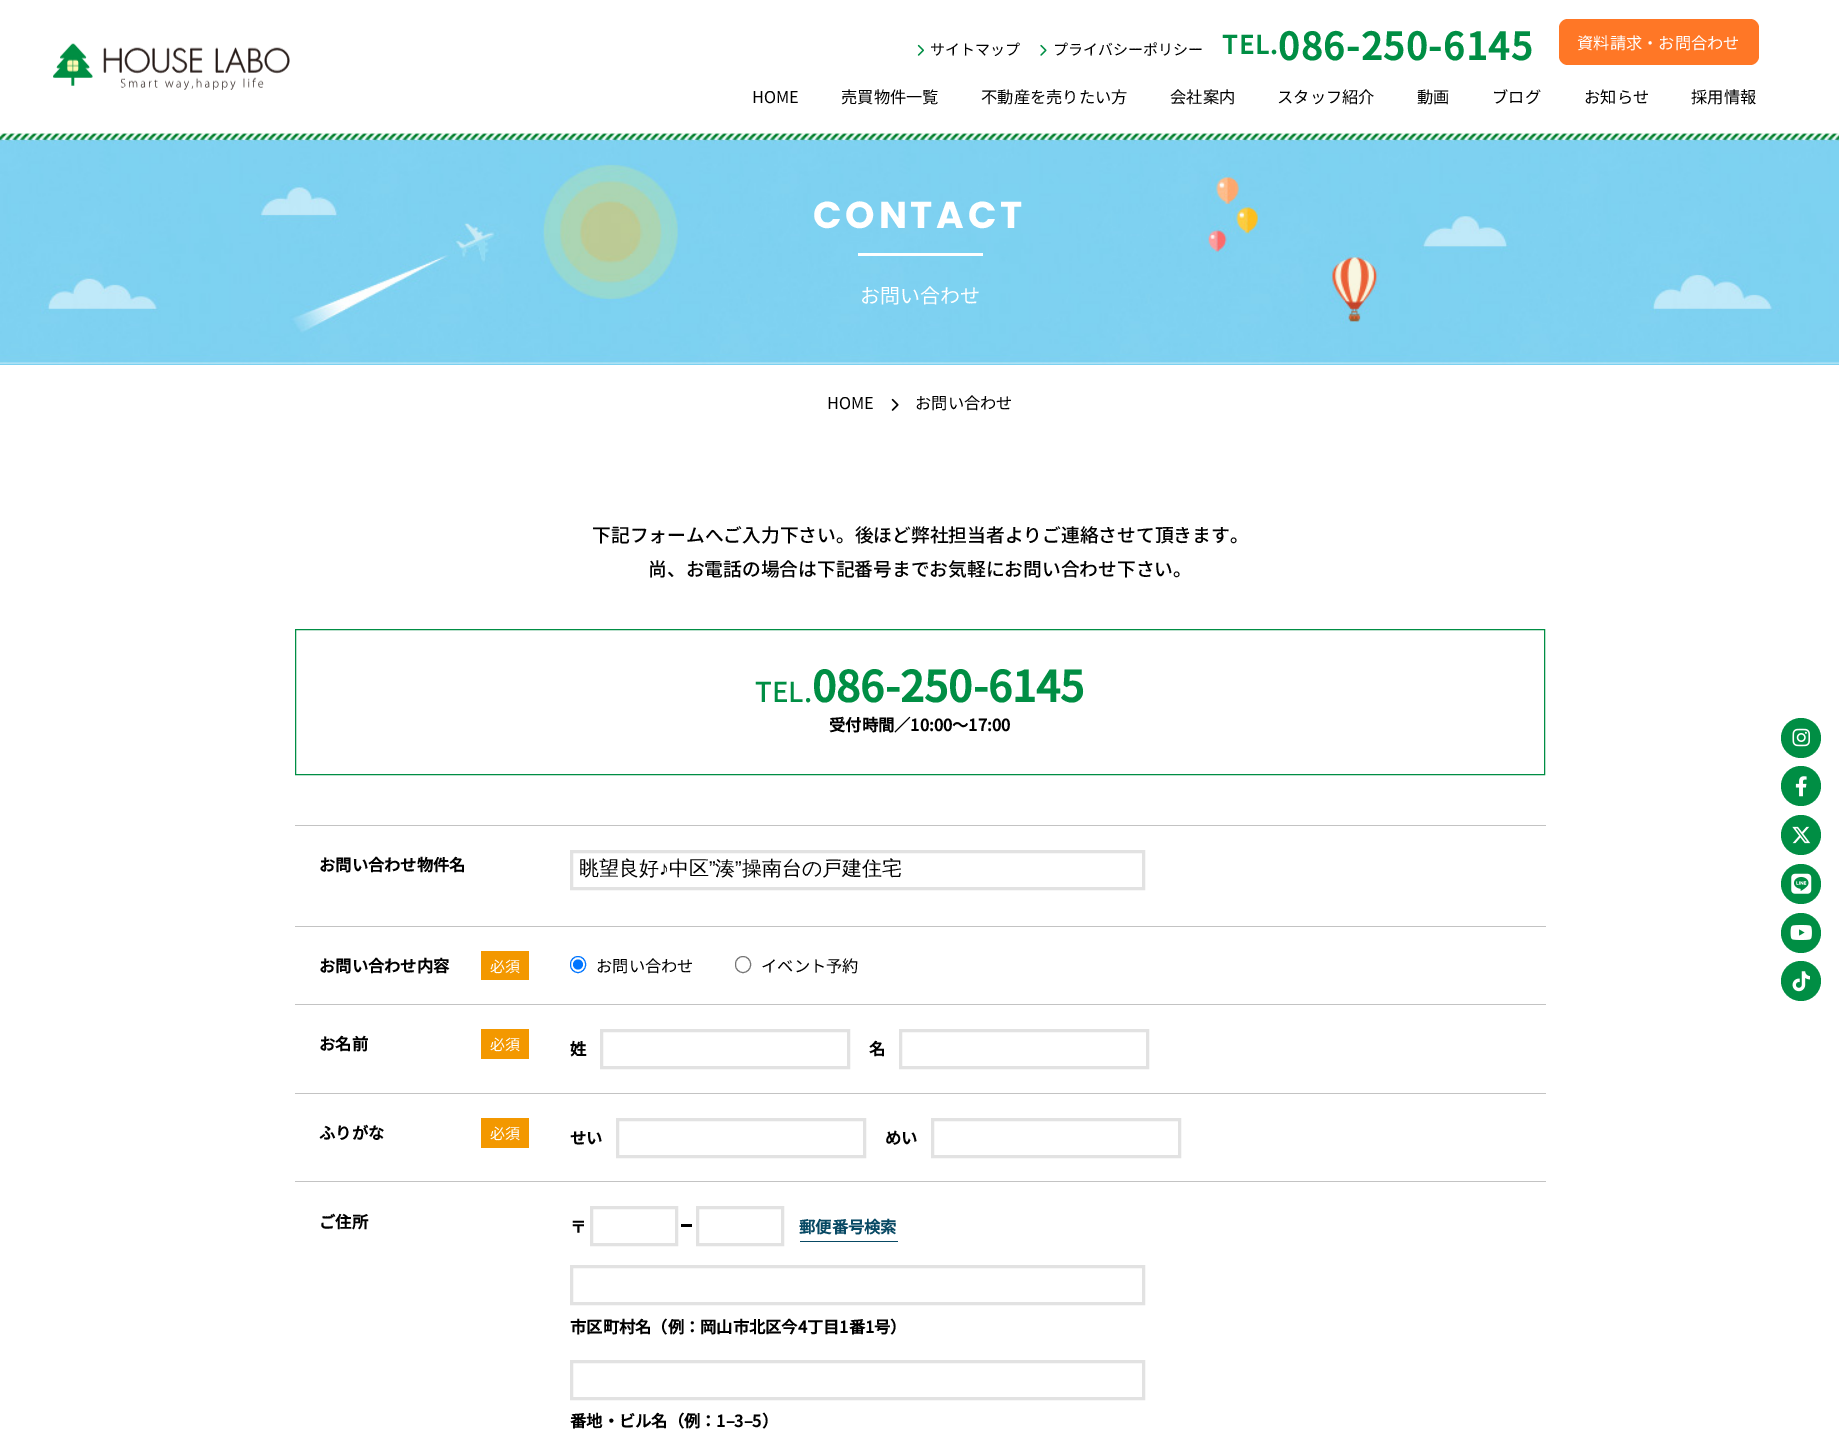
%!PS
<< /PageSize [1839 1434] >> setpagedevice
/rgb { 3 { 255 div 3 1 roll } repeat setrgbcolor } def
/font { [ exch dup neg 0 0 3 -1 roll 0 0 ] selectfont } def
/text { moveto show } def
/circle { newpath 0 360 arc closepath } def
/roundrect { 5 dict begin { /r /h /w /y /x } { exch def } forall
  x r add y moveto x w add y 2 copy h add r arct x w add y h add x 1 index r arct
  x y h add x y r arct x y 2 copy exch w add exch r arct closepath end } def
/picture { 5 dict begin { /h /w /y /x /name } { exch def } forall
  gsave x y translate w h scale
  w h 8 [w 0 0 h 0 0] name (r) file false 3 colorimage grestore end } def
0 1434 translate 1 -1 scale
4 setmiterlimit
255 255 255 rgb
0 0 1839 1434 rectfill
(img_01.rgb) 53 43 237 47 picture
(img_02.rgb) 917 44 7 12 picture
(img_03.rgb) 1040 44 7 12 picture
255 119 38 rgb
1559 19 200 46 9 roundrect fill
125 209 241 rgb
0 363 1839 2 rectfill
(img_04.rgb) 0 133 1839 231 picture
(img_05.rgb) 0 133 1839 7 picture
255 255 255 rgb
858 253 125 3 rectfill
(img_06.rgb) 891 398 8 13 picture
0 142 68 rgb
295.5 629.5 1249 145 rectstroke
195 195 195 rgb
295 825 1251 1 rectfill
226 226 226 rgb
3 setlinewidth
571.5 851.5 572 37 rectstroke
195 195 195 rgb
295 926 1251 1 rectfill
243 152 0 rgb
481 951 48 29 rectfill
0 117 255 rgb
1 setlinewidth
570.5 956.5 15 16 7.5 roundrect stroke
578 964.5 5 circle fill
118 118 118 rgb
735.5 956.5 15 16 7.5 roundrect stroke
195 195 195 rgb
295 1004 1251 1 rectfill
243 152 0 rgb
481 1029 48 30 rectfill
226 226 226 rgb
3 setlinewidth
601.5 1030.5 247 37 rectstroke
900.5 1030.5 247 37 rectstroke
195 195 195 rgb
295 1093 1251 1 rectfill
243 152 0 rgb
481 1118 48 30 rectfill
226 226 226 rgb
617.5 1119.5 247 37 rectstroke
932.5 1119.5 247 37 rectstroke
195 195 195 rgb
295 1181 1251 1 rectfill
226 226 226 rgb
591.5 1207.5 85 37 rectstroke
0 0 0 rgb
681 1224 11 3 rectfill
226 226 226 rgb
697.5 1207.5 85 37 rectstroke
8 73 100 rgb
800 1241 98 1 rectfill
226 226 226 rgb
571.5 1266.5 572 37 rectstroke
571.5 1361.5 572 37 rectstroke
0 142 68 rgb
1801 738 20 circle fill
(img_07.rgb) 1792 728 18 19 picture
1801 786 20 circle fill
(img_08.rgb) 1795 776 12 21 picture
1801 835 20 circle fill
(img_09.rgb) 1792 826 19 18 picture
1801 884 20 circle fill
(img_10.rgb) 1791 873 21 21 picture
1801 933 20 circle fill
(img_11.rgb) 1790 925 22 15 picture
1801 981 20 circle fill
(img_12.rgb) 1792 971 18 21 picture
/NotoSansJP-Regular 15 font
0 0 0 rgb
(サイトマップ) 930 55 text
(プライバシーポリシー) 1053 55 text
/NotoSansJP-Bold 25 font
0 142 68 rgb
1222 54 moveto 1.25 0 (TEL.) ashow
/NotoSansJP-Bold 37.5 font
1278 60 moveto 1.25 0 (086-250-6145) ashow
/NotoSansJP-Regular 16.25 font
255 255 255 rgb
(資料請求・お問合わせ) 1577 49 text
0 0 0 rgb
(HOME) 752 103 text
(売買物件一覧) 841 103 text
(不動産を売りたい方) 981 103 text
(会社案内) 1170 103 text
(スタッフ紹介) 1277 103 text
(動画) 1417 103 text
(ブログ) 1492 103 text
(お知らせ) 1584 103 text
(採用情報) 1691 103 text
/Poppins-Bold 37.5 font
255 255 255 rgb
813 228 moveto 3.75 0 (CONTACT) ashow
/NotoSansJP-Regular 20 font
(お問い合わせ) 860 303 text
/NotoSansJP-Regular 16.25 font
0 0 0 rgb
(HOME) 827 409 text
(お問い合わせ) 915 409 text
/NotoSansJP-Medium 18.75 font
(下記フォームへご入力下さい。後ほど弊社担当者よりご連絡させて頂きます。) 592 542 text
(尚、お電話の場合は下記番号までお気軽にお問い合わせ下さい。) 648 576 text
/NotoSansJP-Medium 27.5 font
0 142 68 rgb
(TEL.) 755 702 text
/NotoSansJP-Bold 42.5 font
(086-250-6145) 812 702 text
/NotoSansJP-Bold 16.25 font
0 0 0 rgb
(受付時間／10:00〜17:00) 829 731 text
(お問い合わせ物件名) 319 871 text
/WenQuanYiZenHei-Medium 20 font
(眺望良好) 579 875 text
/LiberationSans-Regular 20 font
(♪) 659 875 text
/WenQuanYiZenHei-Medium 20 font
(中区) 669 875 text
/LiberationSans-Regular 20 font
(”) 709 875 text
/WenQuanYiZenHei-Medium 20 font
(湊) 715 875 text
/LiberationSans-Regular 20 font
(”) 735 875 text
/WenQuanYiZenHei-Medium 20 font
(操南台の戸建住宅) 742 875 text
/NotoSansJP-Bold 16.25 font
(お問い合わせ内容) 319 972 text
/NotoSansJP-Regular 15 font
255 255 255 rgb
(必須) 490 972 text
/NotoSansJP-Regular 16.25 font
0 0 0 rgb
(お問い合わせ) 596 972 text
(イベント予約) 761 972 text
/NotoSansJP-Bold 16.25 font
(お名前) 319 1050 text
/NotoSansJP-Regular 15 font
255 255 255 rgb
(必須) 490 1050 text
/NotoSansJP-Bold 16.25 font
0 0 0 rgb
(姓) 570 1055 text
(名) 869 1055 text
(ふりがな) 319 1139 text
/NotoSansJP-Regular 15 font
255 255 255 rgb
(必須) 490 1139 text
/NotoSansJP-Bold 16.25 font
0 0 0 rgb
(せい) 570 1144 text
(めい) 885 1144 text
(ご住所) 319 1228 text
(〒) 570 1233 text
8 73 100 rgb
(郵便番号検索) 799 1233 text
0 0 0 rgb
(市区町村名（例：岡山市北区今4丁目1番1号）) 570 1333 text
(番地・ビル名（例：1‒3‒5）) 570 1427 text
showpage
